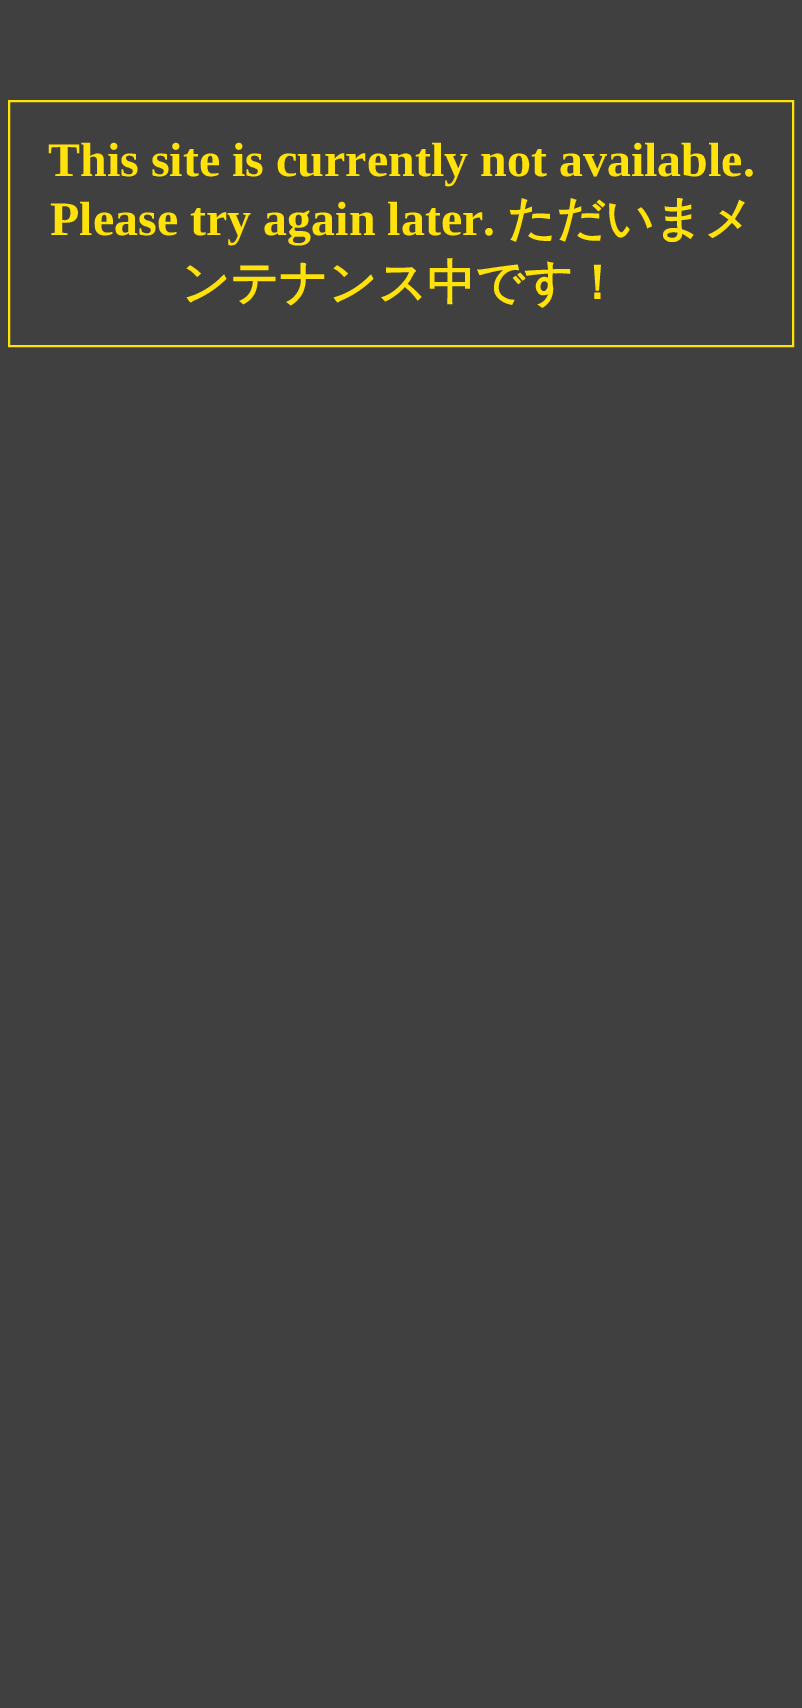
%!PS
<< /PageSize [802 1708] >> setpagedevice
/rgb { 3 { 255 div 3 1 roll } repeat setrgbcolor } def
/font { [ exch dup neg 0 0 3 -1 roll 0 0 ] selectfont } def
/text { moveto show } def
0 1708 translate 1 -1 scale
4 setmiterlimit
64 64 64 rgb
0 0 802 1708 rectfill
255 226 10 rgb
2 setlinewidth
9 101 784 245 rectstroke
/LiberationSerif-Bold 48 font
(This site is currently not available.) 48 176 text
(Please try again later.) 50 235 text
/WenQuanYiZenHei-Bold 48 font
(ただいまメ) 507 235 text
(ンテナンス中です！) 181 299 text
showpage
